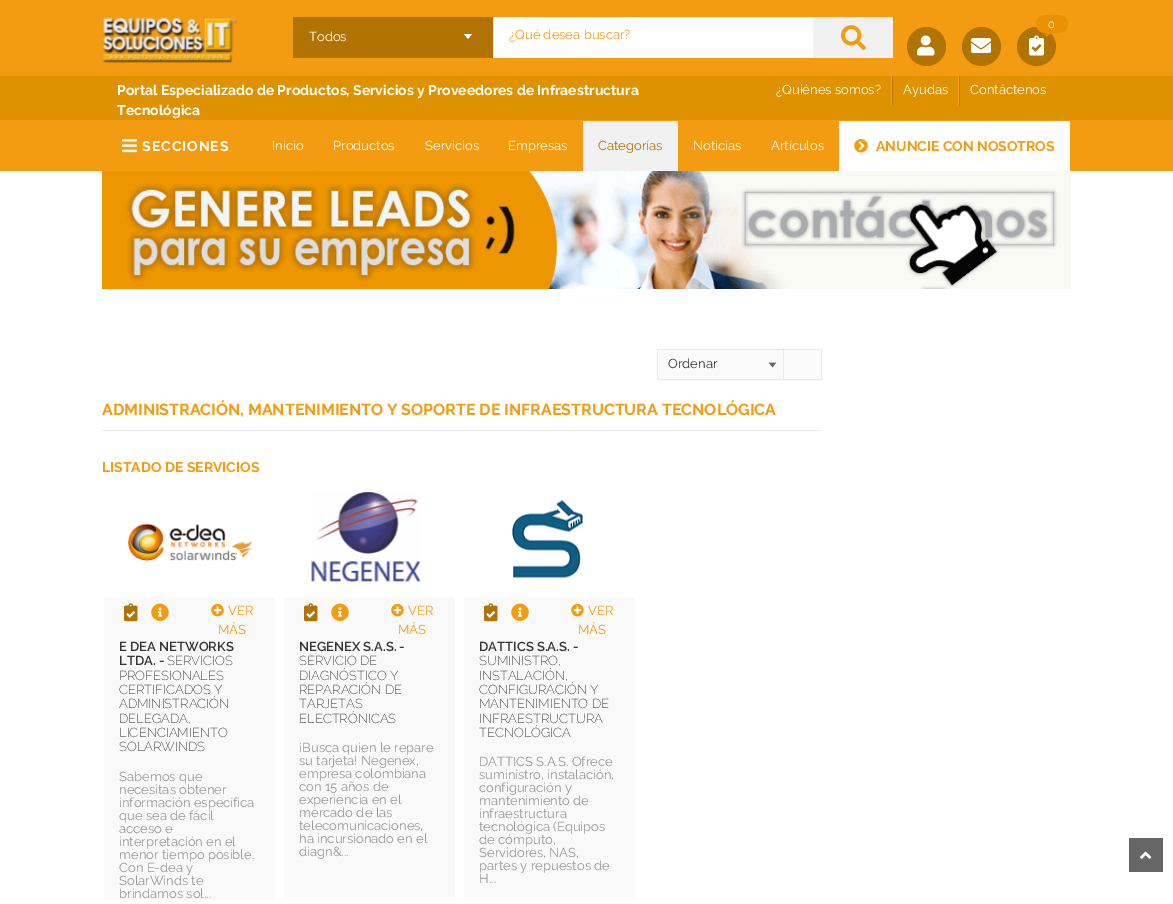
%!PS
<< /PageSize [1173 904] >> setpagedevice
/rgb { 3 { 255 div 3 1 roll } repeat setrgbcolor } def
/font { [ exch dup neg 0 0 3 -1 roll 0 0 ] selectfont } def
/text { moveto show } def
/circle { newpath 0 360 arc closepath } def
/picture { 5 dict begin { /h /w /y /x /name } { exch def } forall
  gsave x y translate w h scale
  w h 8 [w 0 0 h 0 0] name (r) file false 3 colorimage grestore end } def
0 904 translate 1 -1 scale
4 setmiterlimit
255 255 255 rgb
0 0 1173 904 rectfill
243 156 18 rgb
0 0 1173 171 rectfill
(img_01.rgb) 102 17 136 46 picture
177 116 2 rgb
1036.5 46.5 19.5 circle fill
(img_03.rgb) 1029 35 15 21 picture
(img_02.rgb) 1036 15 32 22 picture
926.5 46.5 19.5 circle fill
(img_04.rgb) 917 35 18 21 picture
981.5 46.5 19.5 circle fill
(img_05.rgb) 971 38 20 15 picture
255 255 255 rgb
494 17 319 41 rectfill
241 241 241 rgb
493 57 1 1 rectfill
177 116 2 rgb
293 17 1 41 rectfill
294 17 199 41 rectfill
234 234 234 rgb
493 17 1 40 rectfill
255 255 255 rgb
464 34 moveto 8 0 rlineto -4 5 rlineto closepath fill
241 241 241 rgb
813 17 80 41 rectfill
(img_06.rgb) 841 25 25 26 picture
223 146 0 rgb
0 76 1173 44 rectfill
249 164 1 rgb
891 76 1 29 rectfill
958 76 1 29 rectfill
182 119 0 rgb
892 76 1 29 rectfill
959 76 1 29 rectfill
(img_07.rgb) 122 139 15 14 picture
241 241 241 rgb
583 121 95 50 rectfill
255 255 255 rgb
839 121 231 50 rectfill
(img_08.rgb) 854 139 14 14 picture
(img_09.rgb) 102 171 969 118 picture
234 234 234 rgb
657.5 349.5 164 30 rectstroke
250 250 250 rgb
658 350 125 29 rectfill
(img_10.rgb) 768 362 9 6 picture
784 350 37 29 rectfill
234 234 234 rgb
783 350 1 29 rectfill
102 430 720 1 rectfill
249 249 249 rgb
104 597 171 303 rectfill
(img_11.rgb) 128 523 125 39 picture
(img_12.rgb) 124 603 14 19 picture
(img_13.rgb) 151 603 18 18 picture
(img_14.rgb) 211 603 13 14 picture
284 597 171 300 rectfill
(img_15.rgb) 311 491 110 91 picture
(img_12.rgb) 304 603 14 19 picture
(img_13.rgb) 331 603 18 18 picture
(img_14.rgb) 391 603 13 14 picture
464 597 171 300 rectfill
(img_16.rgb) 512 499 71 79 picture
(img_12.rgb) 484 603 14 19 picture
(img_13.rgb) 511 603 18 18 picture
(img_14.rgb) 571 603 13 14 picture
102 102 102 rgb
1129 838 34 34 rectfill
(img_17.rgb) 1140 851 12 8 picture
/Raleway-Regular 11 font
255 255 255 rgb
(0) 1048 28 text
/Raleway-Regular 13 font
(Todos) 309 41 text
243 156 18 rgb
(¿Qué desea buscar?) 509 39 text
/Raleway-Bold 14 font
255 255 255 rgb
(Portal Especializado de Productos, Servicios y Proveedores de Infraestructura) 117 95 text
(Tecnológica) 117 115 text
/Raleway-Regular 13 font
(¿Quiénes somos?) 776 94 text
(Ayudas) 903 94 text
(Contáctenos) 970 94 text
/Raleway-Bold 14 font
142 151 moveto 1 0 (SECCIONES) ashow
/Raleway-Regular 13 font
(Inicio) 272 150 text
(Productos) 333 150 text
(Servicios) 425 150 text
(Empresas) 508 150 text
177 116 2 rgb
(Categorías) 598 150 text
255 255 255 rgb
(Noticias) 693 150 text
(Artículos) 771 150 text
/Raleway-Bold 14 font
243 156 18 rgb
(ANUNCIE CON NOSOTROS) 876 151 text
/Raleway-Regular 13 font
51 51 51 rgb
(Ordenar) 668 368 text
/Raleway-Bold 16 font
243 156 18 rgb
(ADMINISTRACIÓN, MANTENIMIENTO Y SOPORTE DE INFRAESTRUCTURA TECNOLÓGICA) 102 415 text
/Raleway-Bold 14 font
(LISTADO DE SERVICIOS) 102 472 text
/Raleway-Regular 13 font
(VER) 228 615 text
(MÁS) 218 634 text
/Raleway-SemiBold 13 font
51 51 51 rgb
(E DEA NETWORKS) 119 651 text
(LTDA. -) 119 665 text
/Raleway-ExtraLight 13 font
(SERVICIOS) 167 665 text
(PROFESIONALES) 119 680 text
(CERTIFICADOS Y) 119 694 text
(ADMINISTRACIÓN) 119 708 text
(DELEGADA,) 119 723 text
(LICENCIAMIENTO) 119 737 text
(SOLARWINDS) 119 751 text
/Raleway-Regular 13 font
153 153 153 rgb
(Sabemos que) 119 781 text
(necesitas obtener) 119 794 text
(información específica) 119 807 text
(que sea de fácil) 119 820 text
(acceso e) 119 833 text
(interpretación en el) 119 846 text
(menor tiempo posible.) 119 859 text
(Con E-dea y) 119 872 text
(SolarWinds te) 119 885 text
(brindamos sol...) 119 898 text
243 156 18 rgb
(VER) 408 615 text
(MÁS) 398 634 text
/Raleway-SemiBold 13 font
51 51 51 rgb
(NEGENEX S.A.S. -) 299 651 text
/Raleway-ExtraLight 13 font
(SERVICIO DE) 299 665 text
(DIAGNÓSTICO Y) 299 680 text
(REPARACIÓN DE) 299 694 text
(TARJETAS) 299 708 text
(ELECTRÓNICAS) 299 723 text
/Raleway-Regular 13 font
153 153 153 rgb
(¡Busca quien le repare) 299 752 text
(su tarjeta! Negenex,) 299 765 text
(empresa colombiana) 299 778 text
(con 15 años de) 299 791 text
(experiencia en el) 299 804 text
(mercado de las) 299 817 text
(telecomunicaciones,) 299 830 text
(ha incursionado en el) 299 843 text
(diagn&...) 299 856 text
243 156 18 rgb
(VER) 588 615 text
(MÁS) 578 634 text
/Raleway-SemiBold 13 font
51 51 51 rgb
(DATTICS S.A.S. -) 479 651 text
/Raleway-ExtraLight 13 font
(SUMINISTRO,) 479 665 text
(INSTALACIÓN,) 479 680 text
(CONFIGURACIÓN Y) 479 694 text
(MANTENIMIENTO DE) 479 708 text
(INFRAESTRUCTURA) 479 723 text
(TECNOLÓGICA) 479 737 text
/Raleway-Regular 13 font
153 153 153 rgb
(DATTICS S.A.S. Ofrece) 479 766 text
(suministro, instalación,) 479 779 text
(configuración y) 479 792 text
(mantenimiento de) 479 805 text
(infraestructura) 479 818 text
(tecnológica \(Equipos) 479 831 text
(de cómputo,) 479 844 text
(Servidores, NAS,) 479 857 text
(partes y repuestos de) 479 870 text
(H...) 479 883 text
showpage
